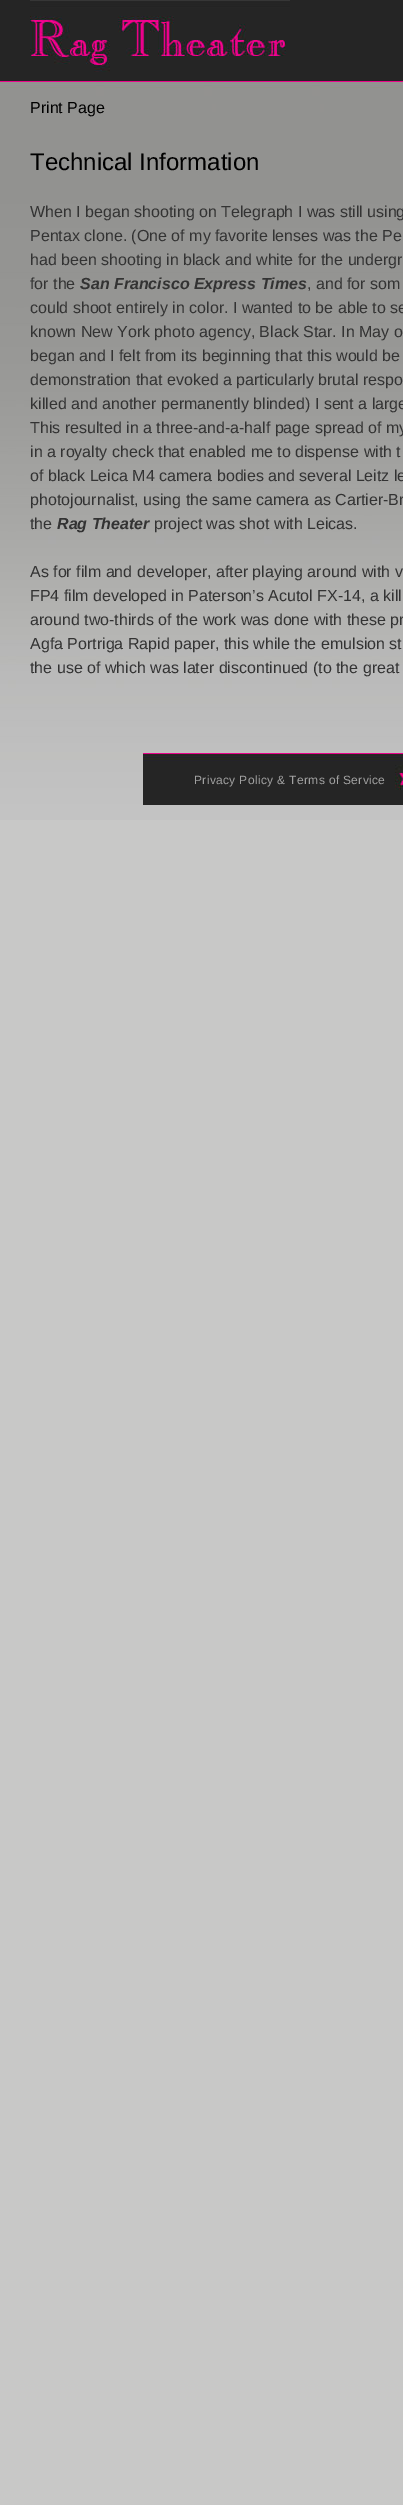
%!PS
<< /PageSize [403 2505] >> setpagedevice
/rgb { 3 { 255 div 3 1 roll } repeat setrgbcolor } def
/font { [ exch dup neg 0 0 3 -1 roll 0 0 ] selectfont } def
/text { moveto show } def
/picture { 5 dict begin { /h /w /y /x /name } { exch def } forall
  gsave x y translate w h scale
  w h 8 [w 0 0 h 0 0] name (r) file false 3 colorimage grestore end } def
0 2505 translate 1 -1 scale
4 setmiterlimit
200 200 199 rgb
0 0 403 2505 rectfill
(img_01.rgb) 0 0 403 820 picture
(img_02.rgb) 30 0 260 72 picture
37 37 37 rgb
143 761 260 44 rectfill
(img_03.rgb) 143 753 260 8 picture
(img_04.rgb) 395 765 8 25 picture
/LiberationSans-Regular 16 font
0 0 0 rgb
(Print Page) 30 113 text
/LiberationSans-Regular 24 font
(Technical Information) 30 170 text
/LiberationSans-Regular 16 font
51 51 51 rgb
(When I began shooting on Telegraph I was still using) 30 217 text
(Pentax clone. \(One of my favorite lenses was the Pe) 30 241 text
(had been shooting in black and white for the undergr) 30 265 text
(for the) 30 289 text
/LiberationSans-BoldItalic 16 font
(San Francisco Express Times) 80 289 text
/LiberationSans-Regular 16 font
(, and for som) 307 289 text
(could shoot entirely in color. I wanted to be able to se) 30 313 text
(known New York photo agency, Black Star. In May o) 30 337 text
(began and I felt from its beginning that this would be) 30 361 text
(demonstration that evoked a particularly brutal respo) 30 385 text
(killed and another permanently blinded\) I sent a large) 30 409 text
(This resulted in a three-and-a-half page spread of my) 30 433 text
(in a royalty check that enabled me to dispense with t) 30 457 text
(of black Leica M4 camera bodies and several Leitz le) 30 481 text
(photojournalist, using the same camera as Cartier-Br) 30 505 text
(the) 30 529 text
/LiberationSans-BoldItalic 16 font
(Rag Theater) 57 529 text
/LiberationSans-Regular 16 font
(project was shot with Leicas.) 154 529 text
(As for film and developer, after playing around with v) 30 577 text
(FP4 film developed in Paterson’s Acutol FX-14, a kill) 30 601 text
(around two-thirds of the work was done with these pr) 30 625 text
(Agfa Portriga Rapid paper, this while the emulsion st) 30 649 text
(the use of which was later discontinued \(to the great) 30 673 text
/LiberationSans-Regular 12 font
161 161 161 rgb
194 784 moveto 0.35 0 (Privacy Policy & Terms of Service) ashow
showpage
